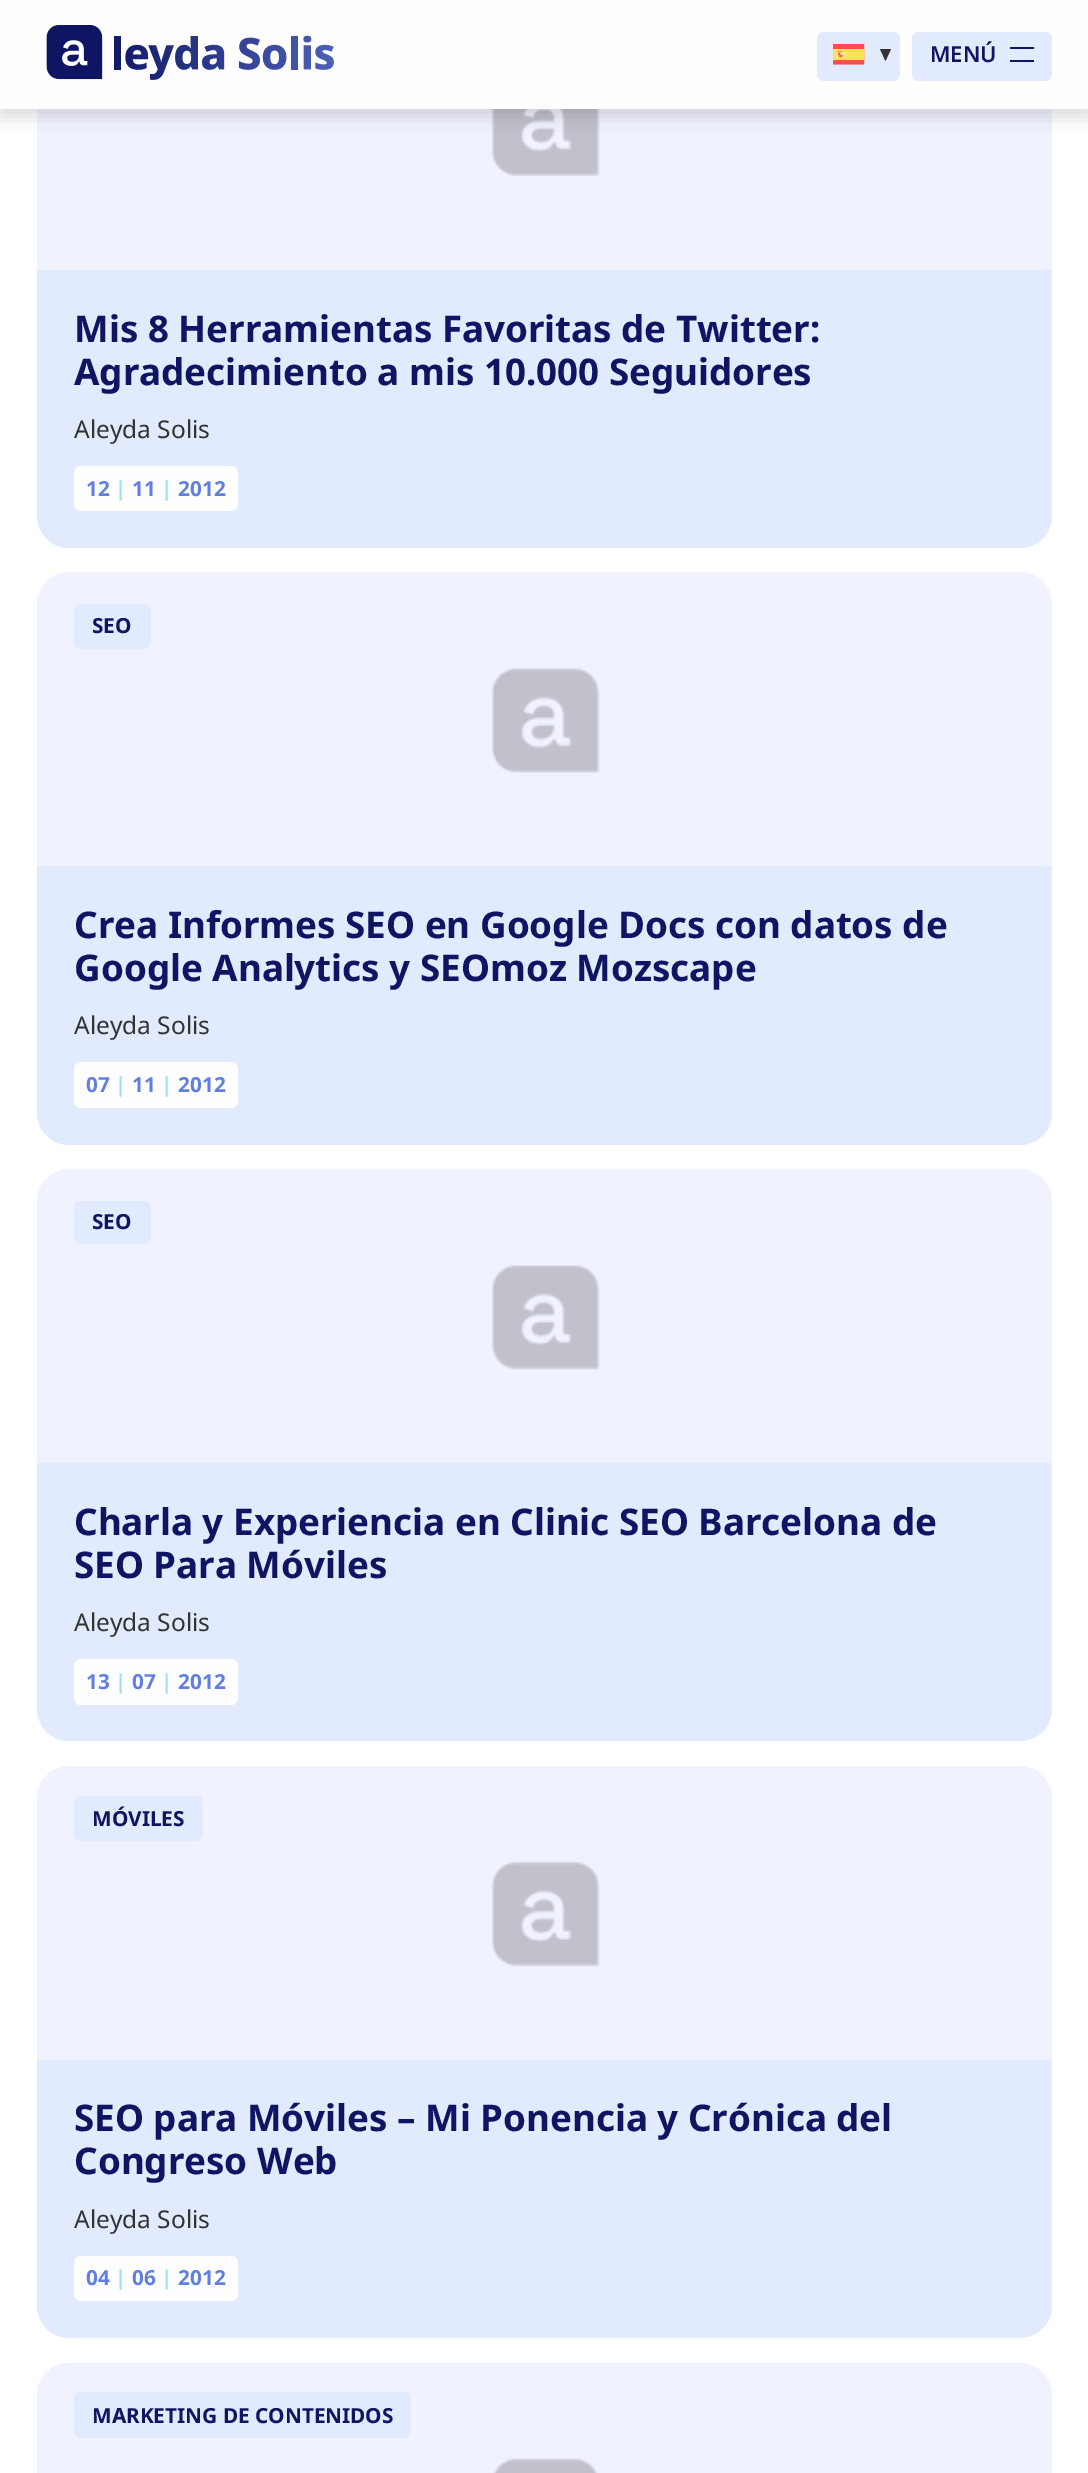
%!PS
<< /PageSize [1088 2473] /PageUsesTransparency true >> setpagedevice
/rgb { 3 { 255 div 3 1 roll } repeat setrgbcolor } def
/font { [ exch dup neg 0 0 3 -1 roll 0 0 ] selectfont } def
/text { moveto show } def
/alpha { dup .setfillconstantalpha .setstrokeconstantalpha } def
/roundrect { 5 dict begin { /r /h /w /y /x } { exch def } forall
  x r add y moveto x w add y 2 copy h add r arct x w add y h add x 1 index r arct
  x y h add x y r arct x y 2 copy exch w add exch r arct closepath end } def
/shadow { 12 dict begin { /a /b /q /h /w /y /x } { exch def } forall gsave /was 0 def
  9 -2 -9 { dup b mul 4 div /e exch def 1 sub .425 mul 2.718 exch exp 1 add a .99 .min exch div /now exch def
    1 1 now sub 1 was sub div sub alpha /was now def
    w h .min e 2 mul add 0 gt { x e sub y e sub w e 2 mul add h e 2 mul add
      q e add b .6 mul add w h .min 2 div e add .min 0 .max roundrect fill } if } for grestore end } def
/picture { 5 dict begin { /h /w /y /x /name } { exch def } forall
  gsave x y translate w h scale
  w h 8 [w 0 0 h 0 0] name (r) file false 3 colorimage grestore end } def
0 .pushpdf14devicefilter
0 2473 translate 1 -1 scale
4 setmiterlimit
255 255 255 rgb
0 0 1088 2473 rectfill
241 242 255 rgb
37 109 1015 161 rectfill
(img_03.rgb) 491 109 109 67 picture
0 0 0 rgb
0 7 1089 109 0 9 0.15 shadow
254 254 254 rgb
0 0 1088 109 rectfill
(img_01.rgb) 46 25 288 55 picture
226 235 253 rgb
817 32 83 49 7 roundrect fill
(img_02.rgb) 833 44 32 21 picture
51 51 51 rgb
880 49 moveto 11 0 rlineto -5.5 12 rlineto closepath fill
226 235 253 rgb
912 32 140 49 7 roundrect fill
15 21 98 rgb
1010 47 24 2 rectfill
1010 60 24 2 rectfill
226 235 253 rgb
37 270 moveto 1015 0 rlineto 0 246 rlineto 0 17.5 -14.5 32 -32 32 rcurveto -951 0 rlineto -17.5 0 -32 -14.5 -32 -32 rcurveto closepath fill
254 254 254 rgb
74 466 164 45 7 roundrect fill
241 242 255 rgb
69 572 moveto 951 0 rlineto 17.5 0 32 14.5 32 32 rcurveto 0 262 rlineto -1015 0 rlineto 0 -262 rlineto 0 -17.5 14.5 -32 32 -32 rcurveto closepath fill
(img_04.rgb) 491 668 109 105 picture
226 235 253 rgb
74 604 77 45 7 roundrect fill
37 866 moveto 1015 0 rlineto 0 247 rlineto 0 17.5 -14.5 32 -32 32 rcurveto -951 0 rlineto -17.5 0 -32 -14.5 -32 -32 rcurveto closepath fill
254 254 254 rgb
74 1062 164 46 7 roundrect fill
241 242 255 rgb
69 1169 moveto 951 0 rlineto 17.5 0 32 14.5 32 32 rcurveto 0 262 rlineto -1015 0 rlineto 0 -262 rlineto 0 -17.5 14.5 -32 32 -32 rcurveto closepath fill
(img_05.rgb) 491 1265 109 105 picture
226 235 253 rgb
74 1201 77 43 7 roundrect fill
37 1463 moveto 1015 0 rlineto 0 246 rlineto 0 17.5 -14.5 32 -32 32 rcurveto -951 0 rlineto -17.5 0 -32 -14.5 -32 -32 rcurveto closepath fill
254 254 254 rgb
74 1659 164 46 7 roundrect fill
241 242 255 rgb
69 1766 moveto 951 0 rlineto 17.5 0 32 14.5 32 32 rcurveto 0 262 rlineto -1015 0 rlineto 0 -262 rlineto 0 -17.5 14.5 -32 32 -32 rcurveto closepath fill
(img_06.rgb) 491 1861 109 106 picture
226 235 253 rgb
74 1796 129 45 7 roundrect fill
37 2060 moveto 1015 0 rlineto 0 246 rlineto 0 17.5 -14.5 32 -32 32 rcurveto -951 0 rlineto -17.5 0 -32 -14.5 -32 -32 rcurveto closepath fill
254 254 254 rgb
74 2256 164 45 7 roundrect fill
241 242 255 rgb
69 2363 moveto 951 0 rlineto 17.5 0 32 14.5 32 32 rcurveto 0 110 rlineto -1015 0 rlineto 0 -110 rlineto 0 -17.5 14.5 -32 32 -32 rcurveto closepath fill
(img_07.rgb) 493 2458 105 15 picture
226 235 253 rgb
74 2392 337 46 7 roundrect fill
/NotoSans-SemiBold 22 font
15 21 98 rgb
(MENÚ) 930 62 text
/NotoSans-Bold 36.75 font
(Mis 8 Herramientas Favoritas de Twitter:) 74 342 text
(Agradecimiento a mis 10.000 Seguidores) 74 385 text
/NotoSans-Regular 24.5 font
51 51 51 rgb
(Aleyda Solis) 74 438 text
/NotoSans-Bold 20.8 font
96 127 224 rgb
(12) 86 496 text
159 227 243 rgb
(|) 115 496 text
96 127 224 rgb
(11) 132 496 text
159 227 243 rgb
(|) 161 496 text
96 127 224 rgb
(2012) 178 496 text
15 21 98 rgb
(SEO) 92 633 text
/NotoSans-Bold 36.75 font
(Crea Informes SEO en Google Docs con datos de) 74 938 text
(Google Analytics y SEOmoz Mozscape) 74 981 text
/NotoSans-Regular 24.5 font
51 51 51 rgb
(Aleyda Solis) 74 1034 text
/NotoSans-Bold 20.8 font
96 127 224 rgb
(07) 86 1092 text
159 227 243 rgb
(|) 115 1092 text
96 127 224 rgb
(11) 132 1092 text
159 227 243 rgb
(|) 161 1092 text
96 127 224 rgb
(2012) 178 1092 text
15 21 98 rgb
(SEO) 92 1229 text
/NotoSans-Bold 36.75 font
(Charla y Experiencia en Clinic SEO Barcelona de) 74 1535 text
(SEO Para Móviles) 74 1578 text
/NotoSans-Regular 24.5 font
51 51 51 rgb
(Aleyda Solis) 74 1631 text
/NotoSans-Bold 20.8 font
96 127 224 rgb
(13) 86 1689 text
159 227 243 rgb
(|) 115 1689 text
96 127 224 rgb
(07) 132 1689 text
159 227 243 rgb
(|) 161 1689 text
96 127 224 rgb
(2012) 178 1689 text
15 21 98 rgb
(MÓVILES) 92 1826 text
/NotoSans-Bold 36.75 font
(SEO para Móviles – Mi Ponencia y Crónica del) 74 2131 text
(Congreso Web) 74 2174 text
/NotoSans-Regular 24.5 font
51 51 51 rgb
(Aleyda Solis) 74 2228 text
/NotoSans-Bold 20.8 font
96 127 224 rgb
(04) 86 2285 text
159 227 243 rgb
(|) 115 2285 text
96 127 224 rgb
(06) 132 2285 text
159 227 243 rgb
(|) 161 2285 text
96 127 224 rgb
(2012) 178 2285 text
15 21 98 rgb
(MARKETING DE CONTENIDOS) 92 2423 text
.poppdf14devicefilter showpage
